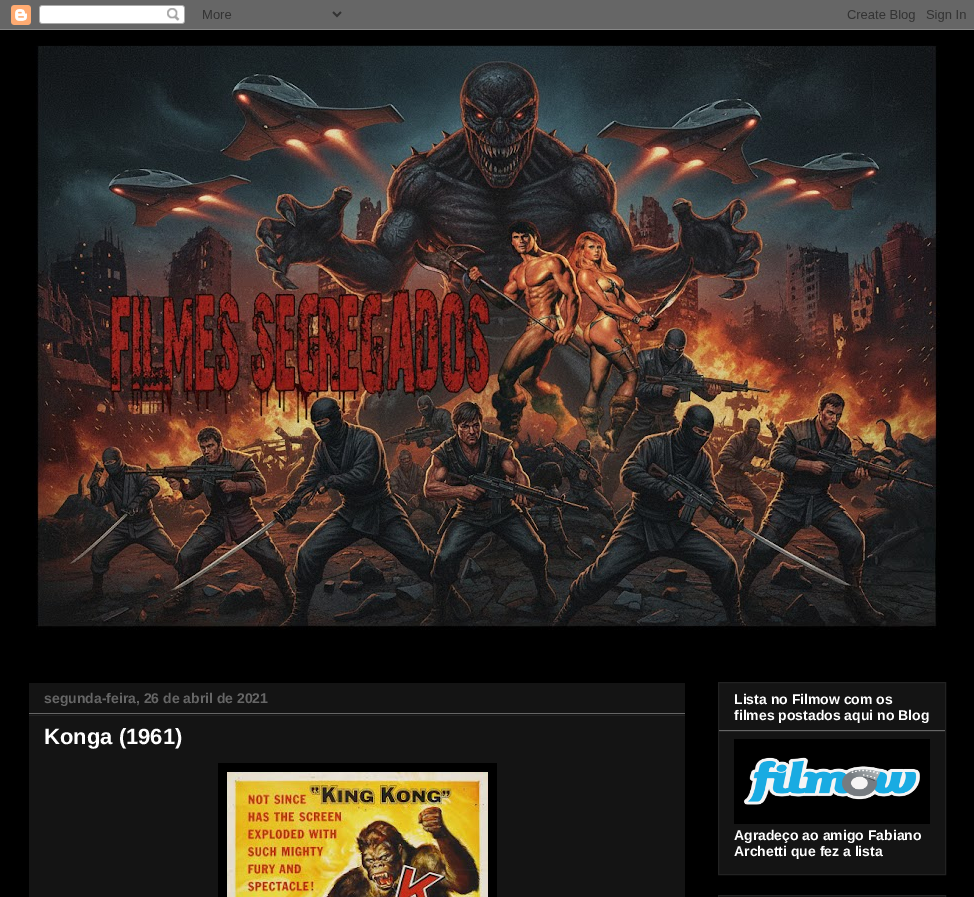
%!PS
<< /PageSize [974 897] >> setpagedevice
/rgb { 3 { 255 div 3 1 roll } repeat setrgbcolor } def
/font { [ exch dup neg 0 0 3 -1 roll 0 0 ] selectfont } def
/text { moveto show } def
/picture { 5 dict begin { /h /w /y /x /name } { exch def } forall
  gsave x y translate w h scale
  w h 8 [w 0 0 h 0 0] name (r) file false 3 colorimage grestore end } def
0 897 translate 1 -1 scale
4 setmiterlimit
0 0 0 rgb
0 0 974 897 rectfill
(img_01.rgb) 0 0 974 30 picture
(img_02.rgb) 34 45 906 585 picture
20 20 20 rgb
29 683 656 214 rectfill
102 102 102 rgb
29 713 656 1 rectfill
34 34 34 rgb
29 715 656 1 rectfill
0 0 0 rgb
218 763 279 134 rectfill
(img_03.rgb) 227 772 261 125 picture
20 20 20 rgb
718.5 682.5 moveto 227 0 rlineto 0 192 rlineto -227 0 rlineto closepath gsave fill grestore
34 34 34 rgb
stroke
102 102 102 rgb
719 730 226 1 rectfill
34 34 34 rgb
719 731 226 1 rectfill
(img_04.rgb) 734 739 196 85 picture
20 20 20 rgb
718.5 895.5 moveto 227 0 rlineto 0 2 rlineto -227 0 rlineto closepath gsave fill grestore
34 34 34 rgb
stroke
/LiberationSans-Bold 14 font
102 102 102 rgb
(segunda-feira, 26 de abril de 2021) 44 703 text
/LiberationSans-Bold 22 font
255 255 255 rgb
(Konga \(1961\)) 44 744 text
/LiberationSans-Bold 14 font
(Lista no Filmow com os) 734 704 text
(filmes postados aqui no Blog) 734 720 text
(Agradeço ao amigo Fabiano) 734 840 text
(Archetti que fez a lista) 734 856 text
showpage
